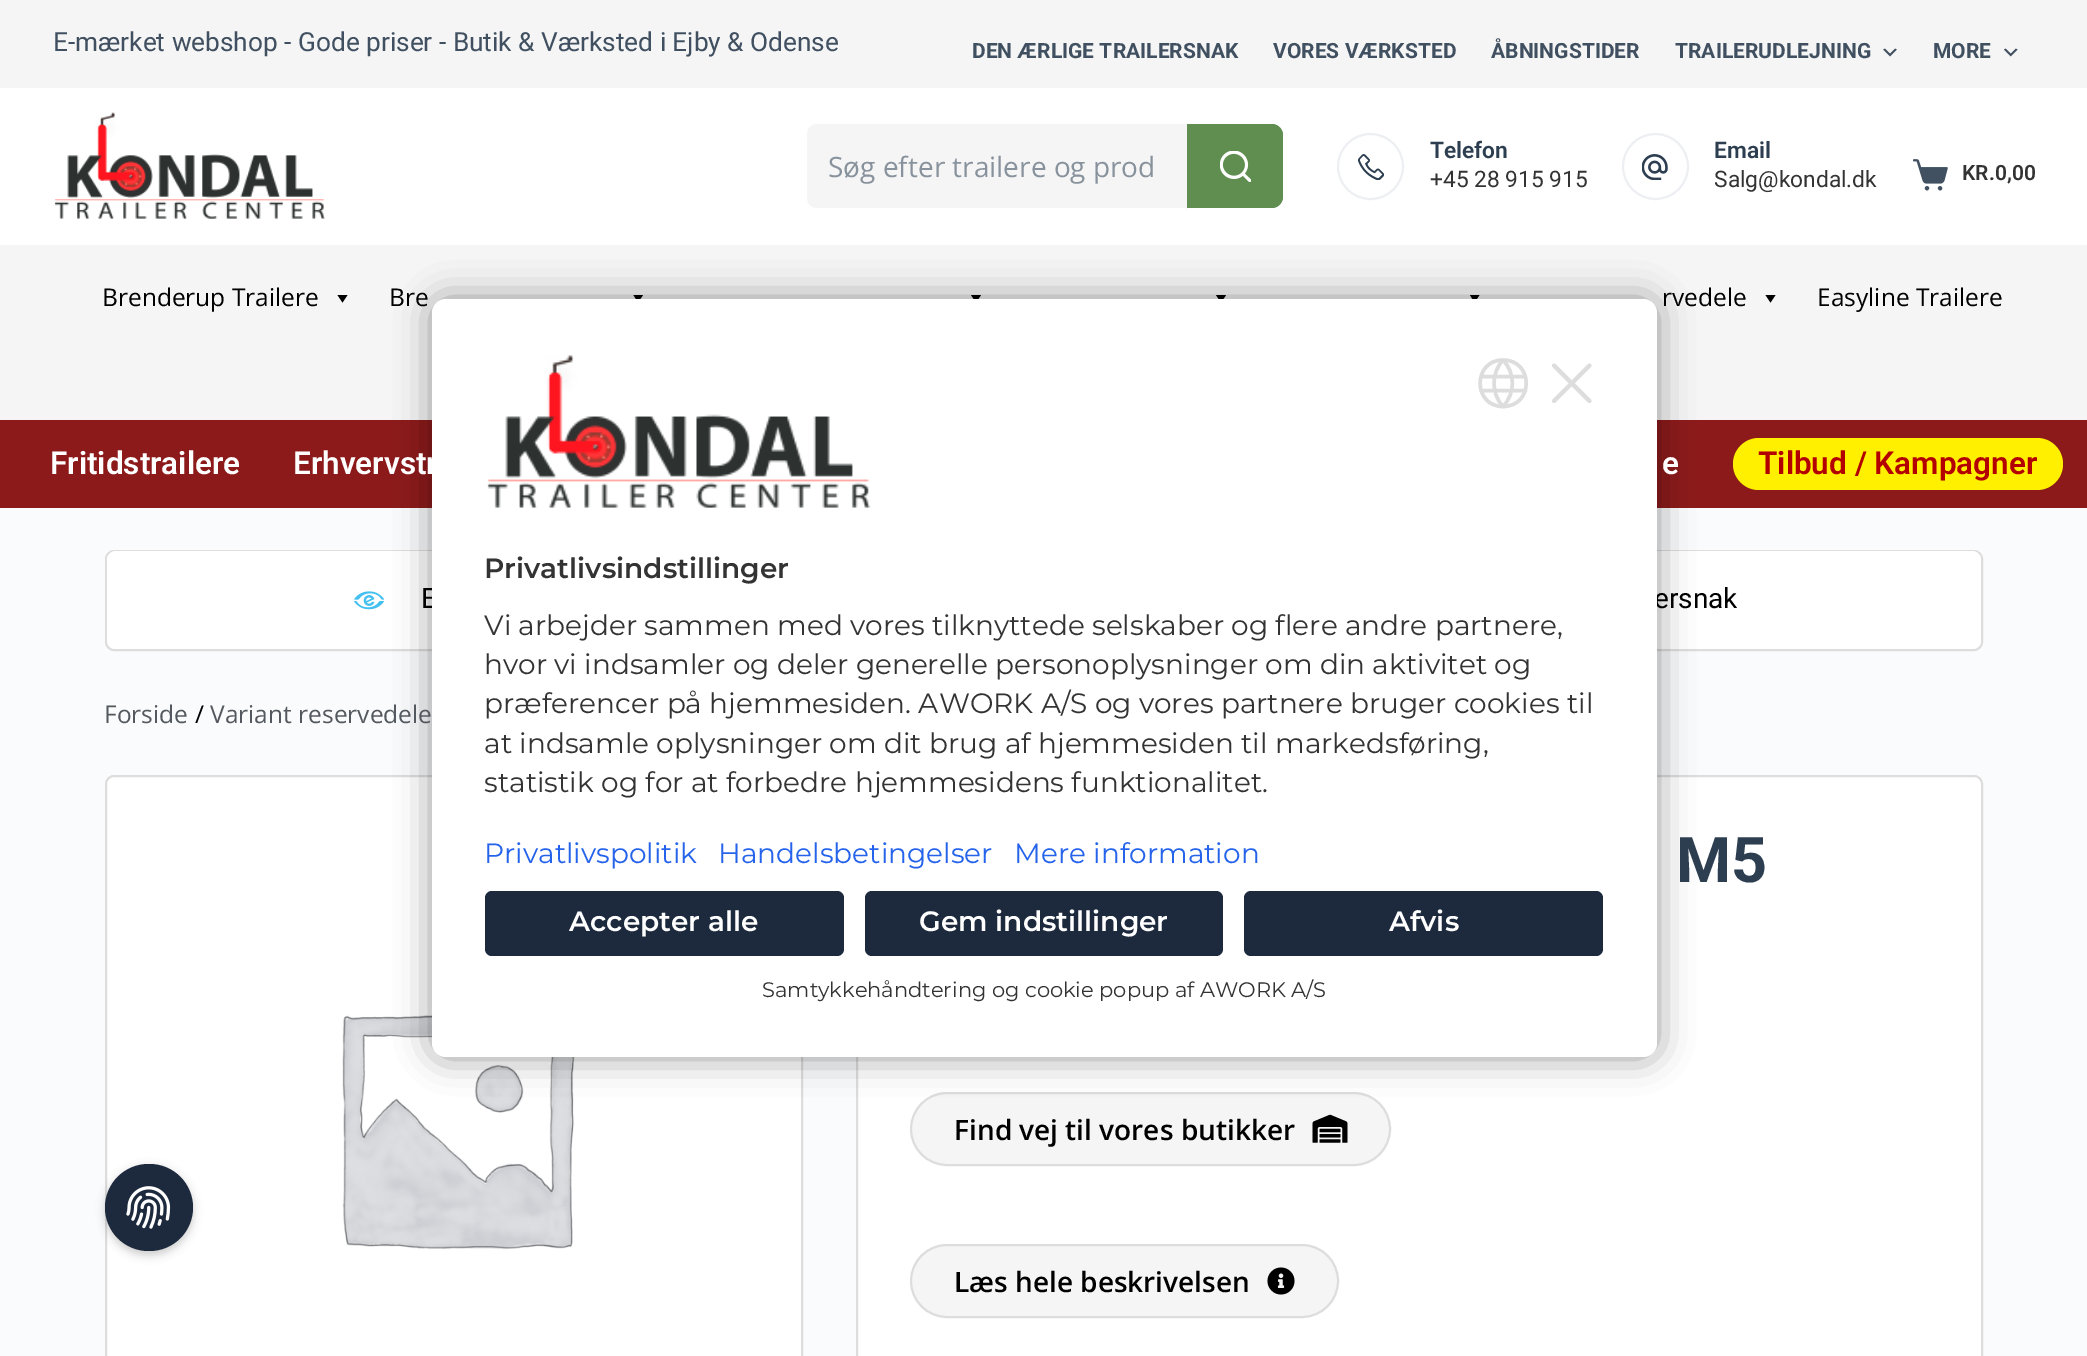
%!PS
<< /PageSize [2087 1356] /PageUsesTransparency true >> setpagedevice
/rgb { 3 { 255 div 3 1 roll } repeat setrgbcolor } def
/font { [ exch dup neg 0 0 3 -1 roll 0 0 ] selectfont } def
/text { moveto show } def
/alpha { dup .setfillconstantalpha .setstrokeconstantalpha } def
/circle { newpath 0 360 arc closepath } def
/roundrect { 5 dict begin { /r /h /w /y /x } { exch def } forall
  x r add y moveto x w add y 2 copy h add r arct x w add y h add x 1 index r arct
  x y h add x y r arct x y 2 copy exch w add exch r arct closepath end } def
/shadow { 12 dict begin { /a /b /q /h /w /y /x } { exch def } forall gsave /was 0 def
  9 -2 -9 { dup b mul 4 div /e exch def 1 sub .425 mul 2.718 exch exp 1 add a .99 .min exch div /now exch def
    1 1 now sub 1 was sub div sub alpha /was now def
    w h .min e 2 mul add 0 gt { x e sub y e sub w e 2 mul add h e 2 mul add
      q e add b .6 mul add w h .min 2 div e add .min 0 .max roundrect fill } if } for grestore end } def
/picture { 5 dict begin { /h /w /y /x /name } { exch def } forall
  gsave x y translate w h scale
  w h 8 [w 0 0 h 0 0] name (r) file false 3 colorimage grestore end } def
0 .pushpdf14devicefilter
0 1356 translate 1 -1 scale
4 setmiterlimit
250 251 252 rgb
0 0 2087 1356 rectfill
245 245 245 rgb
0 0 2087 88 rectfill
(img_01.rgb) 1883 48 14 9 picture
(img_02.rgb) 2004 48 14 9 picture
255 255 255 rgb
0 88 2087 157 rectfill
(img_03.rgb) 54 112 271 107 picture
245 245 245 rgb
816 123 moveto 371 0 rlineto 0 87 rlineto -371 0 rlineto -6 0 -11 -5 -11 -11 rcurveto 0 -65 rlineto 0 -6 5 -11 11 -11 rcurveto closepath fill
255 255 255 rgb
816 122 moveto 370 0 rlineto 0 88 rlineto -370 0 rlineto -6 0 -11 -5 -11 -10 rcurveto 0 -67 rlineto 0 -6 5 -11 11 -11 rcurveto closepath 816 124 moveto 370 0 rlineto 0 84 rlineto -370 0 rlineto -5 0 -9 -4 -9 -8 rcurveto 0 -67 rlineto 0 -5 4 -9 9 -9 rcurveto closepath eofill
96 142 80 rgb
1187 124 moveto 85 0 rlineto 6 0 11 5 11 11 rcurveto 0 62 rlineto 0 6 -5 11 -11 11 rcurveto -85 0 rlineto closepath fill
(img_04.rgb) 1220 151 31 31 picture
237 239 242 rgb
2 setlinewidth
1370.5 166.5 32.5 circle stroke
(img_05.rgb) 1358 154 26 26 picture
1655.5 166.5 32.5 circle stroke
(img_06.rgb) 1642 154 26 26 picture
(img_07.rgb) 1913 159 35 32 picture
245 245 245 rgb
0 245 2087 175 rectfill
0 0 0 rgb
347.5 295 moveto -5 7.5 rlineto -5 -7.5 rlineto closepath fill
643 295 moveto -5 7.5 rlineto -4.5 -7.5 rlineto closepath fill
981 295 moveto -5 7.5 rlineto -5 -7.5 rlineto closepath fill
1226 295 moveto -5 7.5 rlineto -5 -7.5 rlineto closepath fill
1479.5 295 moveto -5 7.5 rlineto -4.5 -7.5 rlineto closepath fill
1775.5 295 moveto -5 7.5 rlineto -5 -7.5 rlineto closepath fill
141 26 27 rgb
0 420 2087 88 rectfill
255 240 0 rgb
1733 438 330 52 26 roundrect fill
221 221 221 rgb
106 551 1876 99 8 roundrect stroke
255 255 255 rgb
107 551 1874 98 9 roundrect fill
(img_08.rgb) 354 591 31 19 picture
106 776 696 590 8 roundrect gsave fill grestore
221 221 221 rgb
stroke
(img_09.rgb) 342 1014 233 236 picture
255 255 255 rgb
857 776 1125 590 8 roundrect gsave fill grestore
221 221 221 rgb
stroke
245 245 245 rgb
911 1093 479 72 36 roundrect gsave fill grestore
221 221 221 rgb
stroke
(img_10.rgb) 1312 1114 36 29 picture
245 245 245 rgb
911 1245 427 72 36 roundrect gsave fill grestore
221 221 221 rgb
stroke
(img_11.rgb) 1267 1267 28 28 picture
0 0 0 rgb
432 299 1225 758 14 17.5 0.4 shadow
105 1167 88 88 44 4.5 0.2 shadow
29 41 60 rgb
105 1164 88 87 43.5 roundrect fill
(img_13.rgb) 126 1186 45 43 picture
/Roboto-Regular 26.25 font
64 80 97 rgb
(E-mærket webshop - Gode priser - Butik & Værksted i Ejby & Odense) 53 51 text
/Roboto-Bold 21 font
(DEN ÆRLIGE TRAILERSNAK) 972 58 text
(VORES VÆRKSTED) 1273 58 text
(ÅBNINGSTIDER) 1491 58 text
(TRAILERUDLEJNING) 1675 58 text
(MORE) 1933 58 text
/OpenSans-Regular 28 font
136 146 156 rgb
(Søg efter trailere og prod) 828 177 text
/Roboto-SemiBold 22.75 font
44 62 80 rgb
(Telefon) 1430 158 text
/Roboto-Regular 22.75 font
51 51 51 rgb
(+45 28 915 915) 1430 187 text
/Roboto-SemiBold 22.75 font
44 62 80 rgb
(Email) 1714 158 text
/Roboto-Regular 22.75 font
51 51 51 rgb
(Salg@kondal.dk) 1714 187 text
/Roboto-SemiBold 21 font
(KR.0,00) 1962 180 text
/OpenSans-Regular 24.5 font
0 0 0 rgb
(Brenderup Trailere) 102 306 text
(Bre) 389 306 text
(rvedele) 1662 306 text
(Easyline Trailere) 1817 306 text
/Roboto-SemiBold 31.5 font
255 255 255 rgb
(Fritidstrailere) 50 474 text
(Erhvervstr) 293 474 text
(e) 1662 474 text
179 0 0 rgb
(Tilbud / Kampagner) 1758 474 text
/Roboto-Regular 28 font
0 0 0 rgb
(E) 421 608 text
(ersnak) 1654 608 text
/OpenSans-Regular 24.5 font
84 89 95 rgb
(Forside) 104 723 text
0 0 0 rgb
(/) 195 723 text
84 89 95 rgb
(Variant reservedele) 210 723 text
/Roboto-Bold 63 font
44 62 80 rgb
(M5) 1676 882 text
/OpenSans-SemiBold 28 font
0 0 0 rgb
(Find vej til vores butikker) 954 1140 text
(Læs hele beskrivelsen) 954 1292 text
255 255 255 rgb
432 299 1225 758 14 roundrect fill
(img_12.rgb) 487 355 384 153 picture
221 221 221 rgb
3.5 setlinewidth
1 setlinecap
1 setlinejoin
1503 360 moveto 12.5 13 12.5 33.5 0 46.5 rcurveto 1503 360 moveto -12 13 -12 33.5 0 46.5 rcurveto 1503 360 moveto -30.5 0 -30.5 46.5 0 46.5 rcurveto 1503 360 moveto 31 0 31 46.5 0 46.5 rcurveto 1481 376.5 moveto 44.5 0 rlineto 1481 390.5 moveto 44.5 0 rlineto stroke
3.9 setlinewidth
1589.5 365.5 moveto -35.5 35.5 rlineto 1589.5 401 moveto -35.5 -35.5 rlineto stroke
/Montserrat-SemiBold 28 font
51 51 51 rgb
(Privatlivsindstillinger) 484 578 text
/Montserrat-Regular 28 font
(Vi arbejder sammen med vores tilknyttede selskaber og flere andre partnere,) 484 635 text
(hvor vi indsamler og deler generelle personoplysninger om din aktivitet og) 484 674 text
(præferencer på hjemmesiden. AWORK A/S og vores partnere bruger cookies til) 484 713 text
(at indsamle oplysninger om dit brug af hjemmesiden til markedsføring,) 484 753 text
(statistik og for at forbedre hjemmesidens funktionalitet.) 484 792 text
37 99 235 rgb
(Privatlivspolitik) 484 863 text
(Handelsbetingelser) 718 863 text
(Mere information) 1014 863 text
29 41 60 rgb
485 891 359 65 7 roundrect fill
/Montserrat-SemiBold 28 font
255 255 255 rgb
(Accepter alle) 569 931 text
29 41 60 rgb
865 891 358 65 7 roundrect fill
255 255 255 rgb
(Gem indstillinger) 919 931 text
29 41 60 rgb
1244 891 359 65 7 roundrect fill
255 255 255 rgb
(Afvis) 1389 931 text
/Montserrat-Regular 21 font
51 51 51 rgb
(Samtykkehåndtering og cookie popup af AWORK A/S) 762 997 text
.poppdf14devicefilter showpage
